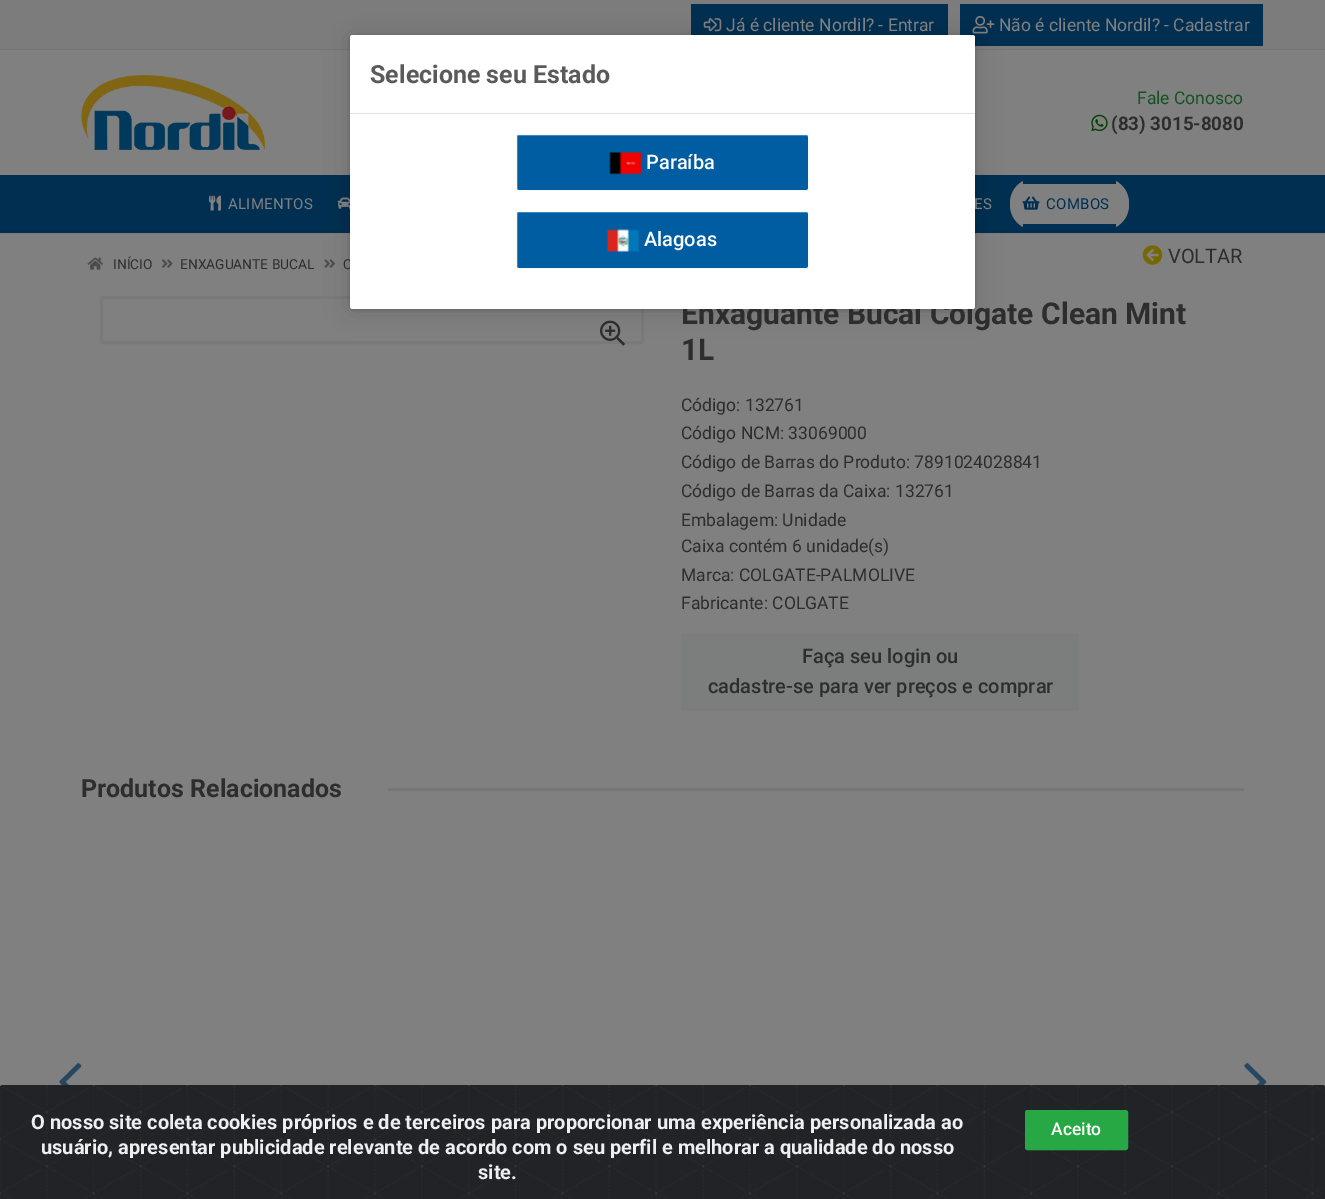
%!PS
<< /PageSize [1325 1199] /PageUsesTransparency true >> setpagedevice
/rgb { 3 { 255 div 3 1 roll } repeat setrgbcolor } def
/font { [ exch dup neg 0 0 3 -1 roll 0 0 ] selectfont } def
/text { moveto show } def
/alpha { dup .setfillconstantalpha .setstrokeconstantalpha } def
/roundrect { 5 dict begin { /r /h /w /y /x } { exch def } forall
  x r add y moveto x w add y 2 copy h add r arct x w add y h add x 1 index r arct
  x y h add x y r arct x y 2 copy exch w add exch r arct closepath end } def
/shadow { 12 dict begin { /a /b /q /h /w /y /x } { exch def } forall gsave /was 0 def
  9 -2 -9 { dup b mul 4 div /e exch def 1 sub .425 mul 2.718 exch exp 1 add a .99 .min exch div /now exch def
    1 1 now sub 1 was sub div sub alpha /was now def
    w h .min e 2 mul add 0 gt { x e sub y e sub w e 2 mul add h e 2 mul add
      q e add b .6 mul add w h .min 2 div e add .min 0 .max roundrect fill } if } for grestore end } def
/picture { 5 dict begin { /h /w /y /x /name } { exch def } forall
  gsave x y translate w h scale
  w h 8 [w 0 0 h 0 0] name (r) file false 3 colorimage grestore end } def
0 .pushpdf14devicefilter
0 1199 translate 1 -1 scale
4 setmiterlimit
128 128 128 rgb
0 0 1325 1199 rectfill
124 124 124 rgb
0 0 1325 49 rectfill
118 118 118 rgb
0 49 1325 1 rectfill
0 47 81 rgb
691 4 257 31 rectfill
(img_01.rgb) 703 18 19 14 picture
960 4 303 42 rectfill
(img_02.rgb) 972 15 23 19 picture
(img_03.rgb) 81 75 184 75 picture
(img_04.rgb) 1091 114 17 18 picture
123 123 123 rgb
0 233 1325 1 rectfill
0 47 81 rgb
0 175 1325 58 rectfill
0 45 78 rgb
0 231 1325 1 rectfill
(img_05.rgb) 208 195 13 16 picture
(img_06.rgb) 337 197 13 12 picture
128 128 128 rgb
1010 178 119 52 25 roundrect fill
0 47 81 rgb
1023 178 93 6 rectfill
1023 224 93 6 rectfill
(img_07.rgb) 1022 196 18 14 picture
121 121 121 rgb
3 setlinewidth
101.5 297.5 541 45 1 roundrect stroke
0 0 0 rgb
350 36 625 274 2.5 2 0.15 shadow
(img_12.rgb) 324 259 11 9 picture
(img_14.rgb) 600 320 25 26 picture
350 36 625 274 2.5 12.5 0.15 shadow
(img_10.rgb) 87 257 16 13 picture
(img_11.rgb) 162 259 11 9 picture
(img_13.rgb) 1142 245 21 20 picture
124 125 125 rgb
681 634 398 77 2.5 roundrect fill
118 118 118 rgb
388 788 856 3 rectfill
(img_15.rgb) 59 1063 23 22 picture
(img_16.rgb) 1244 1063 23 22 picture
(img_17.rgb) 0 1085 1325 114 picture
40 167 69 rgb
1025.5 1110.5 102 39 2 roundrect gsave fill grestore
1 setlinewidth
stroke
/Roboto-Regular 17.5 font
128 128 128 rgb
(Já é cliente Nordil? - Entrar) 726 31 text
(Não é cliente Nordil? - Cadastrar) 999 31 text
20 84 35 rgb
(Fale Conosco) 1137 104 text
/Roboto-Bold 18.75 font
45 45 45 rgb
(\(83\) 3015-8080) 1111 130 text
/Roboto-Regular 15 font
128 128 128 rgb
228 209 moveto 0.25 0 (ALIMENTOS) ashow
974 209 moveto 0.25 0 (ES) ashow
0 47 81 rgb
1046 209 moveto 0.25 0 (COMBOS) ashow
/Roboto-Regular 13.75 font
45 45 45 rgb
(INÍCIO) 113 269 text
(ENXAGUANTE BUCAL) 180 269 text
(C) 343 269 text
/Roboto-Regular 20 font
(VOLTAR) 1168 263 text
/Roboto-Bold 30 font
(Enxaguante Bucal Colgate Clean Mint) 681 324 text
255 255 255 rgb
350 35 625 274 2.5 roundrect fill
0 93 162 rgb
516.5 211.5 292 57 2 roundrect gsave fill grestore
248 249 250 rgb
stroke
/Roboto-Medium 20 font
255 255 255 rgb
(Alagoas) 644 246 text
(img_09.rgb) 607 229 32 23 picture
0 93 162 rgb
516.5 134.5 292 56 2 roundrect gsave fill grestore
248 249 250 rgb
stroke
255 255 255 rgb
(Paraíba) 646 169 text
(img_08.rgb) 609 152 33 23 picture
/Roboto-Bold 25 font
90 90 90 rgb
(Selecione seu Estado) 370 83 text
222 226 230 rgb
350 113 625 1 rectfill
/Roboto-Bold 30 font
45 45 45 rgb
(1L) 681 360 text
/Roboto-Regular 17.5 font
(Código: 132761) 681 411 text
(Código NCM: 33069000) 681 439 text
(Código de Barras do Produto: 7891024028841) 681 468 text
(Código de Barras da Caixa: 132761) 681 497 text
(Embalagem: Unidade) 681 526 text
(Caixa contém 6 unidade\(s\)) 681 552 text
(Marca: COLGATE-PALMOLIVE) 681 581 text
(Fabricante: COLGATE) 681 609 text
/Roboto-Medium 20 font
(Faça seu login ou) 802 663 text
(cadastre-se para ver preços e comprar) 708 693 text
/Roboto-Bold 25 font
(Produtos Relacionados) 81 797 text
/Roboto-Bold 20 font
236 240 241 rgb
(O nosso site coleta cookies próprios e de terceiros para proporcionar uma experiência personalizada ao) 31 1129 text
(usuário, apresentar publicidade relevante de acordo com o seu perfil e melhorar a qualidade do nosso) 41 1154 text
(site.) 478 1179 text
/Roboto-Medium 17.5 font
255 255 255 rgb
(Aceito) 1051 1135 text
.poppdf14devicefilter showpage
